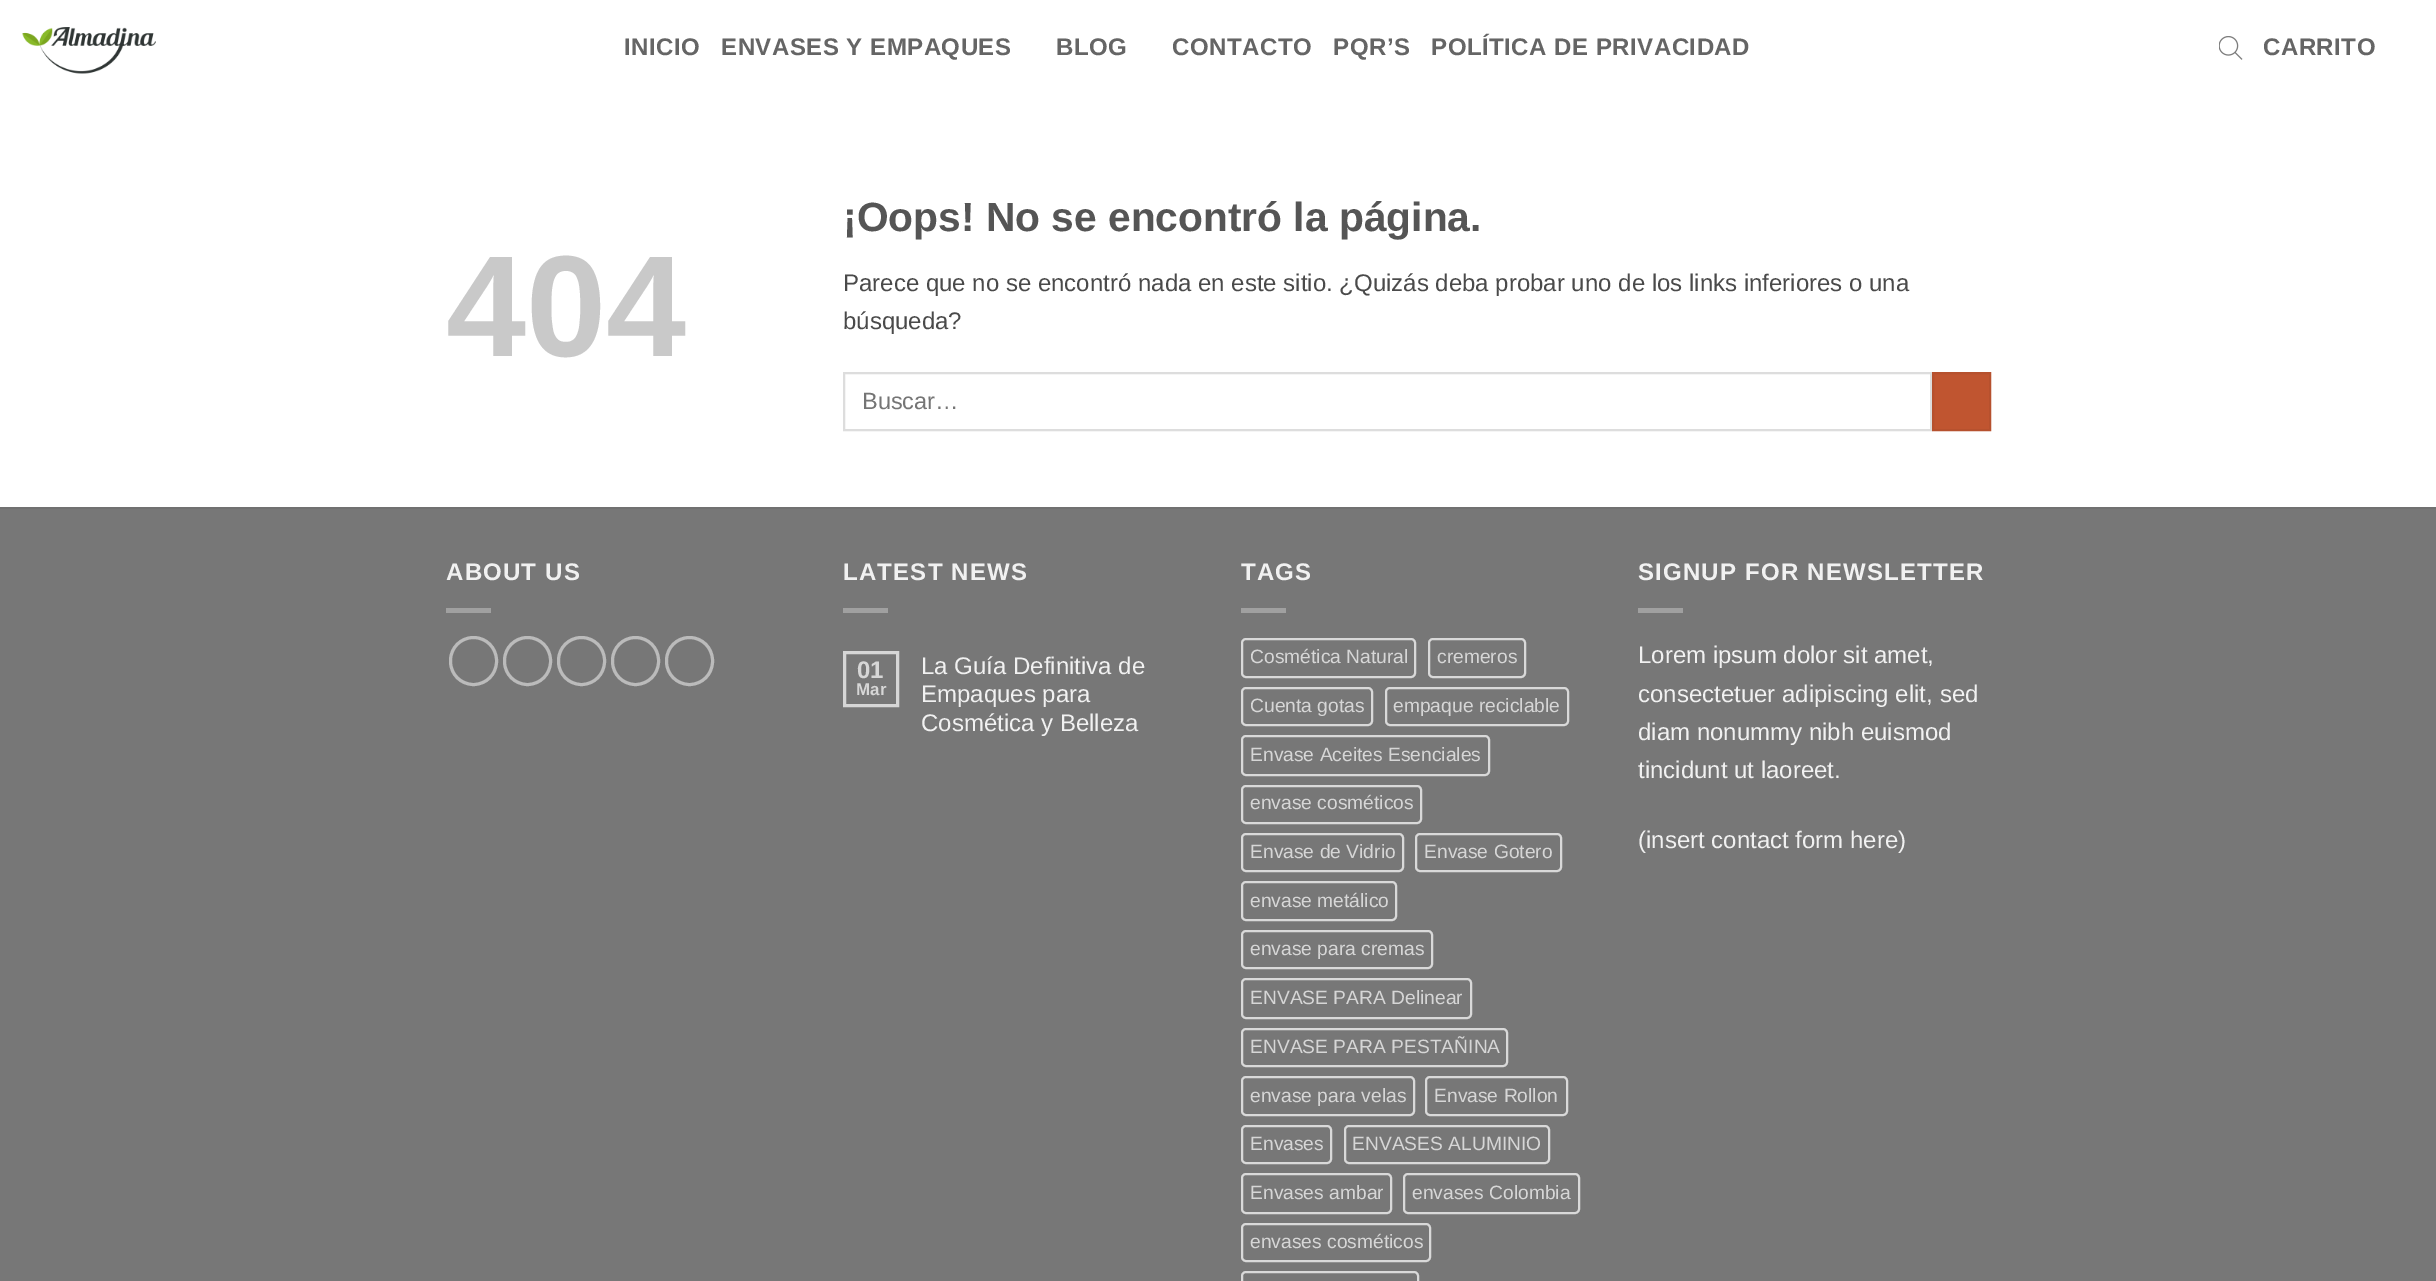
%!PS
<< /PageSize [2436 1281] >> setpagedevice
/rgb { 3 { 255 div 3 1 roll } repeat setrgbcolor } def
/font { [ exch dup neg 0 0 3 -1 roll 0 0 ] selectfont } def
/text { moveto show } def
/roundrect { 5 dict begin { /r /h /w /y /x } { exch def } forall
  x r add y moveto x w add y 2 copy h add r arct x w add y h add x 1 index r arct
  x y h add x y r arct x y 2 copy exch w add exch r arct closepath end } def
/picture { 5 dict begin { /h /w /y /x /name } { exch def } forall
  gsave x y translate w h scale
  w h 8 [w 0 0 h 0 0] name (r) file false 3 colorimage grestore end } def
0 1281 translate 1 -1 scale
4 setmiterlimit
255 255 255 rgb
0 0 2436 1281 rectfill
(img_01.rgb) 22 27 134 47 picture
(img_02.rgb) 2219 36 24 24 picture
221 221 221 rgb
2 setlinewidth
844 373 1087 57 rectstroke
192 85 48 rgb
1933 373 moveto 57 0 rlineto 0 57 rlineto -57 0 rlineto closepath gsave fill grestore
182 81 46 rgb
stroke
119 119 119 rgb
0 509 2436 772 rectfill
113 113 113 rgb
0 507 2436 2 rectfill
160 160 160 rgb
446 608 45 5 rectfill
187 187 187 rgb
3 setlinewidth
450.5 637.5 46 47 23 roundrect stroke
504.5 637.5 46 47 23 roundrect stroke
558.5 637.5 46 47 23 roundrect stroke
612.5 637.5 46 47 23 roundrect stroke
666.5 637.5 46 47 23 roundrect stroke
160 160 160 rgb
843 608 45 5 rectfill
214 214 214 rgb
844.5 652.5 53 53 rectstroke
160 160 160 rgb
1241 608 45 5 rectfill
217 217 217 rgb
2 setlinewidth
1242 639 173 38 4 roundrect stroke
1429 639 96 38 4 roundrect stroke
1242 688 130 37 4 roundrect stroke
1386 688 182 37 4 roundrect stroke
1242 736 247 39 4 roundrect stroke
1242 786 179 37 4 roundrect stroke
1242 834 161 37 4 roundrect stroke
1416 834 145 37 4 roundrect stroke
1242 882 154 38 4 roundrect stroke
1242 931 190 37 4 roundrect stroke
1242 979 229 39 4 roundrect stroke
1242 1029 265 37 4 roundrect stroke
1242 1077 172 38 4 roundrect stroke
1426 1077 141 38 4 roundrect stroke
1242 1126 89 37 4 roundrect stroke
1345 1126 204 37 4 roundrect stroke
1242 1174 149 39 4 roundrect stroke
1404 1174 175 39 4 roundrect stroke
1242 1224 188 37 4 roundrect stroke
1242 1272 176 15 4 roundrect stroke
160 160 160 rgb
1638 608 45 5 rectfill
/LiberationSans-Bold 24 font
101 101 101 rgb
624 55 moveto 0.5 0 (INICIO) ashow
721 55 moveto 0.5 0 (ENVASES Y EMPAQUES) ashow
1056 55 moveto 0.5 0 (BLOG) ashow
1172 55 moveto 0.5 0 (CONTACTO) ashow
1333 55 moveto 0.5 0 (PQR’S) ashow
1431 55 moveto 0.5 0 (POLÍTICA DE PRIVACIDAD) ashow
2263 55 moveto 0.5 0 (CARRITO) ashow
/LiberationSans-Bold 144 font
201 201 201 rgb
(404) 446 356 text
/LiberationSans-Bold 40.75 font
85 85 85 rgb
(¡Oops! No se encontró la página.) 843 231 text
/LiberationSans-Regular 24 font
74 74 74 rgb
(Parece que no se encontró nada en este sitio. ¿Quizás deba probar uno de los links inferiores o una) 843 291 text
(búsqueda?) 843 329 text
/LiberationSans-Regular 23.5 font
117 117 117 rgb
(Buscar…) 862 409 text
/LiberationSans-Bold 24 font
241 241 241 rgb
446 580 moveto 1.2 0 (ABOUT US) ashow
843 580 moveto 1.2 0 (LATEST NEWS) ashow
214 214 214 rgb
(01) 857 678 text
/LiberationSans-Bold 17 font
(Mar) 856 695 text
/LiberationSans-Regular 24 font
241 241 241 rgb
(La Guía Definitiva de) 921 674 text
(Empaques para) 921 702 text
(Cosmética y Belleza) 921 731 text
/LiberationSans-Bold 24 font
1241 580 moveto 1.2 0 (TAGS) ashow
/LiberationSans-Regular 19.25 font
214 214 214 rgb
(Cosmética Natural) 1250 663 text
(cremeros) 1437 663 text
(Cuenta gotas) 1250 712 text
(empaque reciclable) 1393 712 text
(Envase Aceites Esenciales) 1250 761 text
(envase cosméticos) 1250 809 text
(Envase de Vidrio) 1250 858 text
(Envase Gotero) 1424 858 text
(envase metálico) 1250 907 text
(envase para cremas) 1250 955 text
(ENVASE PARA Delinear) 1250 1004 text
(ENVASE PARA PESTAÑINA) 1250 1053 text
(envase para velas) 1250 1102 text
(Envase Rollon) 1434 1102 text
(Envases) 1250 1150 text
(ENVASES ALUMINIO) 1352 1150 text
(Envases ambar) 1250 1199 text
(envases Colombia) 1412 1199 text
(envases cosméticos) 1250 1248 text
/LiberationSans-Bold 24 font
241 241 241 rgb
1638 580 moveto 1.2 0 (SIGNUP FOR NEWSLETTER) ashow
/LiberationSans-Regular 24 font
(Lorem ipsum dolor sit amet,) 1638 663 text
(consectetuer adipiscing elit, sed) 1638 702 text
(diam nonummy nibh euismod) 1638 740 text
(tincidunt ut laoreet.) 1638 778 text
(\(insert contact form here\)) 1638 848 text
showpage
